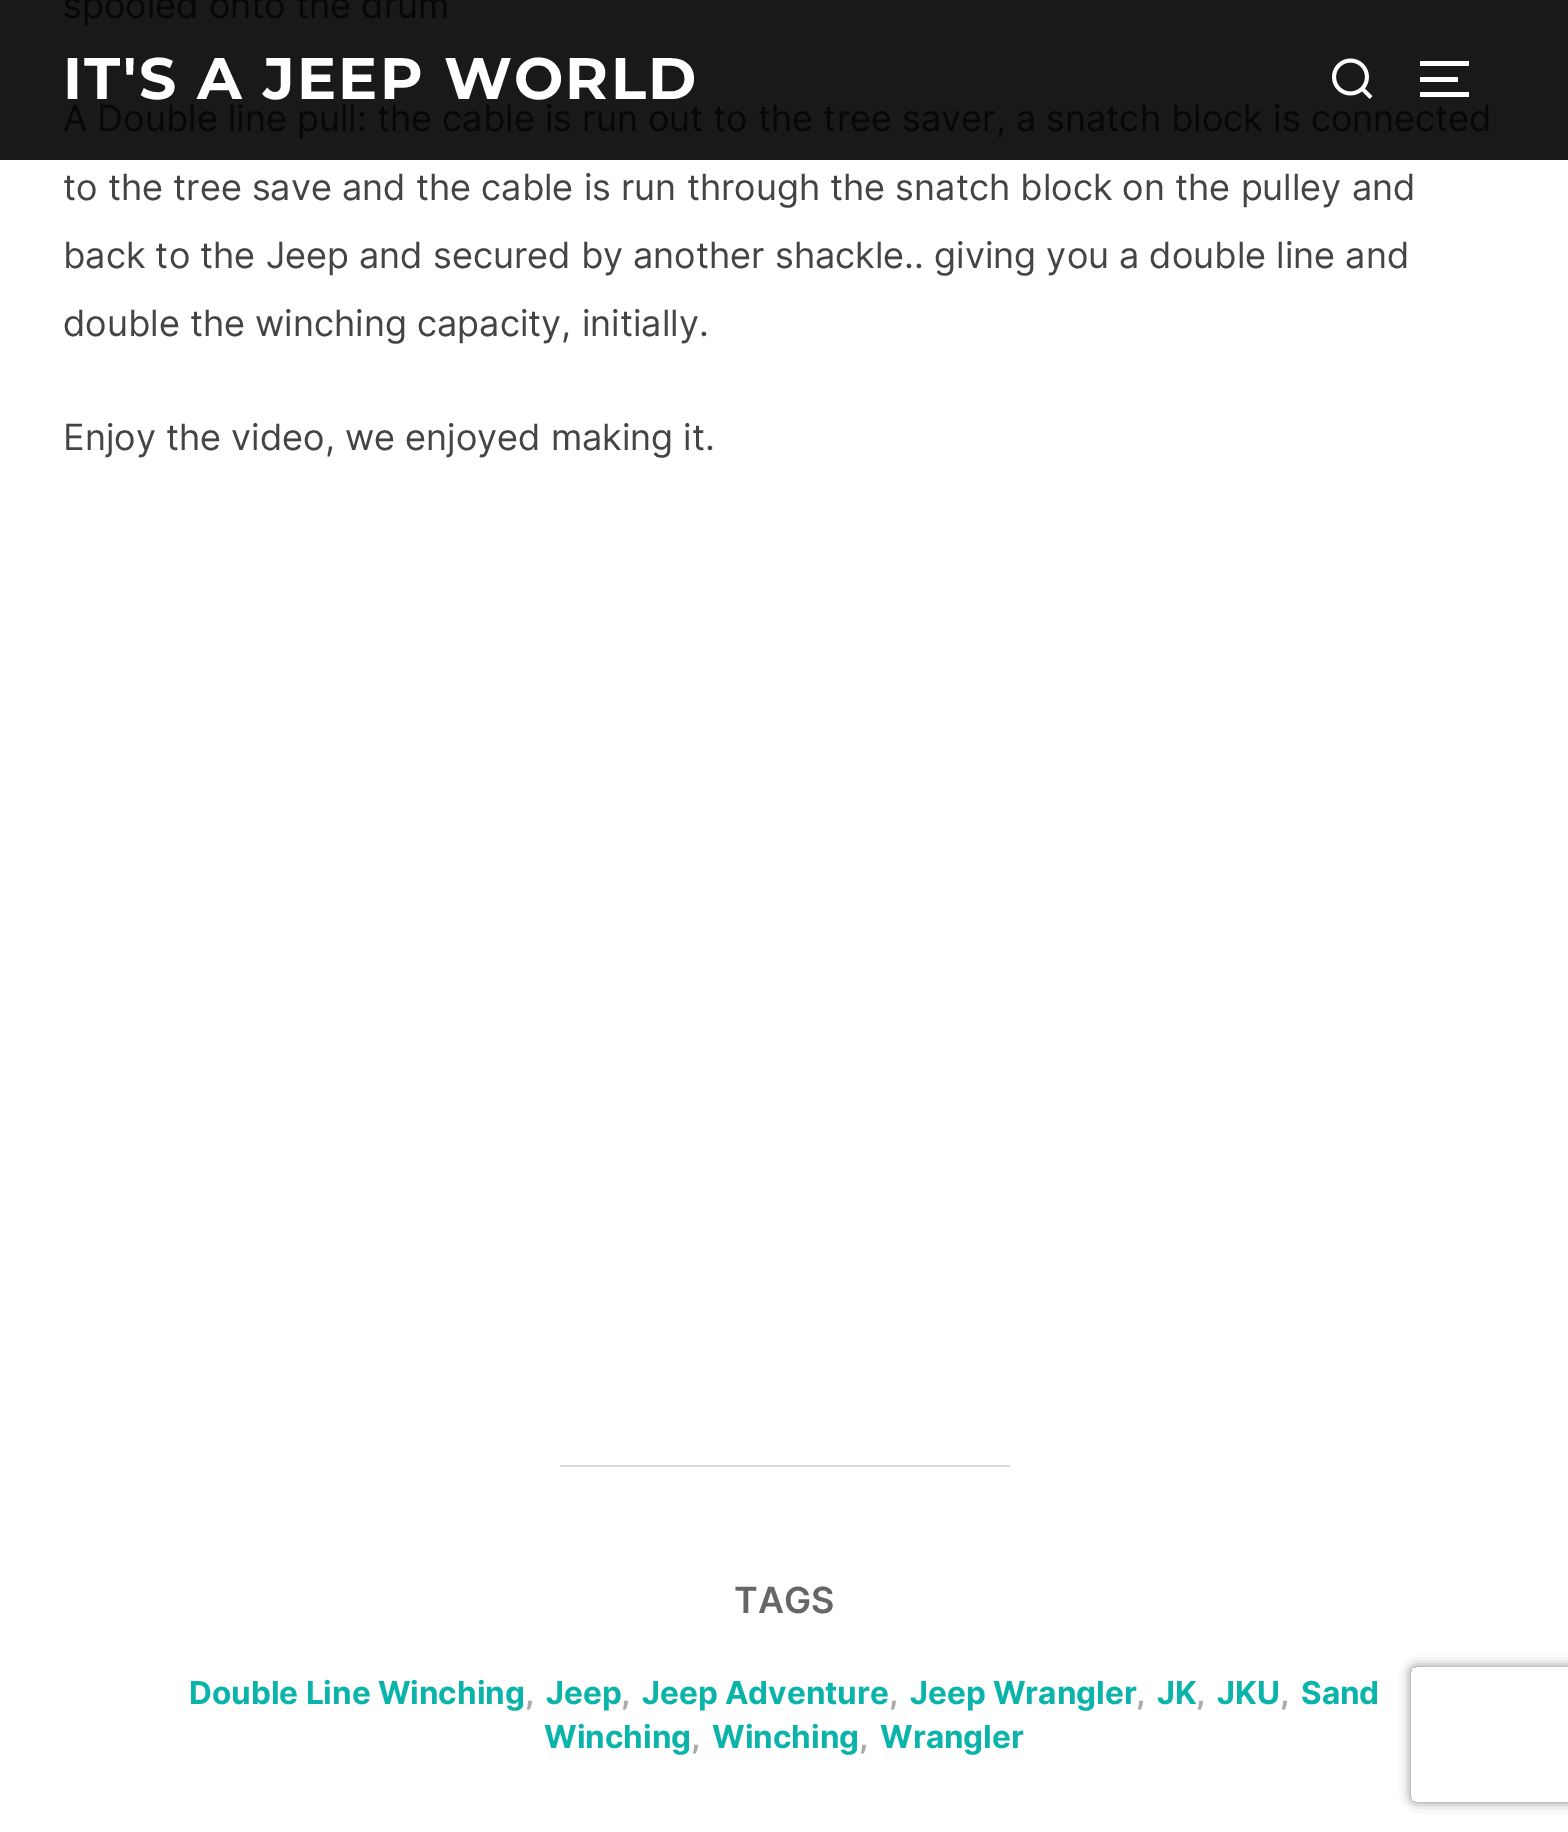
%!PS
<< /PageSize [1568 1832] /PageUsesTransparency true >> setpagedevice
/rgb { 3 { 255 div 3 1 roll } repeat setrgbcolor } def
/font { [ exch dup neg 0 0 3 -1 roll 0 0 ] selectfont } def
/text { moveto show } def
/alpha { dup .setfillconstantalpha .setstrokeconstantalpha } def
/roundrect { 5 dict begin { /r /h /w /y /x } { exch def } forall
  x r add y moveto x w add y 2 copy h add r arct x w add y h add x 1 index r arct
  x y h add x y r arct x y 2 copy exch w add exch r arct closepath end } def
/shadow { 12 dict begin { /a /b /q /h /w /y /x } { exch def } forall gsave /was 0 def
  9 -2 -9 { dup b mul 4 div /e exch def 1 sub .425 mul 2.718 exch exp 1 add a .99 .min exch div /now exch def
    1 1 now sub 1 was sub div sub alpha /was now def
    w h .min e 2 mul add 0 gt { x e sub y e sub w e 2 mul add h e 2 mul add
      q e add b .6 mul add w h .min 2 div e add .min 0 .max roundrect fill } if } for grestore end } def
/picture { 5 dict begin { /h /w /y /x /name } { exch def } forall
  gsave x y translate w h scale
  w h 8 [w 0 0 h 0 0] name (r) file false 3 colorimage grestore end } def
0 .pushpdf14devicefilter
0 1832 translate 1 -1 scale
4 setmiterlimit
255 255 255 rgb
0 0 1568 1832 rectfill
25 25 25 rgb
0 0 1568 160 rectfill
219 219 219 rgb
560 1465 450 2 rectfill
(img_01.rgb) 1332 58 41 41 picture
255 255 255 rgb
1420 61 49 5 rectfill
1420 77 38 5 rectfill
1420 92 49 5 rectfill
gsave
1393 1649 moveto 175 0 rlineto 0 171 rlineto -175 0 rlineto closepath 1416 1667 moveto 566 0 rlineto 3 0 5 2 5 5 rcurveto 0 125 rlineto 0 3 -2 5 -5 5 rcurveto -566 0 rlineto -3 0 -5 -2 -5 -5 rcurveto 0 -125 rlineto 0 -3 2 -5 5 -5 rcurveto closepath eoclip newpath
128 128 128 rgb
1411 1667 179 135 5 5.5 1 shadow
grestore
/Inter-Regular 36 font
7 7 7 rgb
(spooled onto the drum) 63 18 text
(A Double line pull: the cable is run out to the tree saver, a snatch block is connected) 63 131 text
68 68 68 rgb
(to the tree save and the cable is run through the snatch block on the pulley and) 63 200 text
(back to the Jeep and secured by another shackle.. giving you a double line and) 63 268 text
(double the winching capacity, initially.) 63 336 text
(Enjoy the video, we enjoyed making it.) 63 450 text
/Inter-SemiBold 36 font
102 102 102 rgb
(TAGS) 734 1613 text
/Inter-Bold 31.5 font
11 180 170 rgb
(Double Line Winching) 189 1704 text
170 170 170 rgb
(,) 525 1704 text
11 180 170 rgb
(Jeep) 546 1704 text
170 170 170 rgb
(,) 621 1704 text
11 180 170 rgb
(Jeep Adventure) 642 1704 text
170 170 170 rgb
(,) 889 1704 text
11 180 170 rgb
(Jeep Wrangler) 910 1704 text
170 170 170 rgb
(,) 1136 1704 text
11 180 170 rgb
(JK) 1157 1704 text
170 170 170 rgb
(,) 1196 1704 text
11 180 170 rgb
(JKU) 1217 1704 text
170 170 170 rgb
(,) 1280 1704 text
11 180 170 rgb
(Sand) 1301 1704 text
(Winching) 544 1748 text
170 170 170 rgb
(,) 691 1748 text
11 180 170 rgb
(Winching) 712 1748 text
170 170 170 rgb
(,) 859 1748 text
11 180 170 rgb
(Wrangler) 880 1748 text
/Montserrat-Bold 58.5 font
255 255 255 rgb
63 99 moveto 2.25 0 (IT'S A JEEP WORLD) ashow
.poppdf14devicefilter showpage
